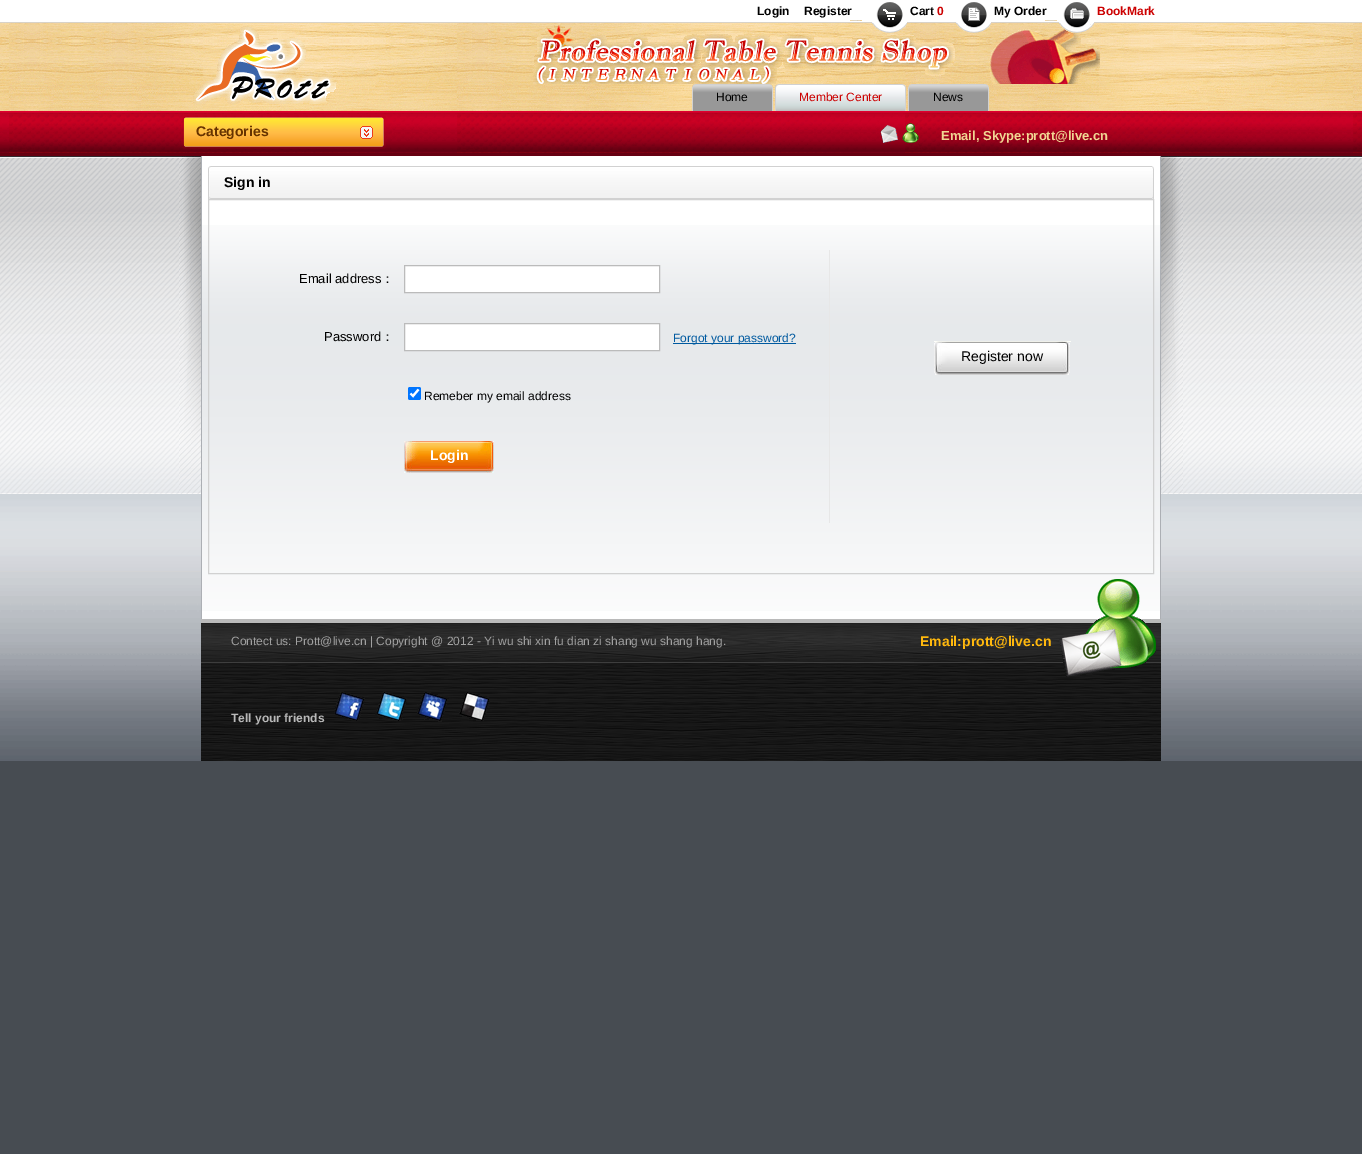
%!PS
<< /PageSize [1362 1154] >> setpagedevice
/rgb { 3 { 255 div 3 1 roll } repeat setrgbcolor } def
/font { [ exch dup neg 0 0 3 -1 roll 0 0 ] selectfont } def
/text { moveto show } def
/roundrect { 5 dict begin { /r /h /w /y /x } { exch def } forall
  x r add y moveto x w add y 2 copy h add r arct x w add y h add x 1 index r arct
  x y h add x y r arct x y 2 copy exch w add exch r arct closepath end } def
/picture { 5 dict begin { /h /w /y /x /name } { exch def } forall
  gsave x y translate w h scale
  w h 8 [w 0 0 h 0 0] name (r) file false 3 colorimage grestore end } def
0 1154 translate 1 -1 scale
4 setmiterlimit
71 76 82 rgb
0 0 1362 1154 rectfill
(img_01.rgb) 0 0 1362 761 picture
(img_02.rgb) 0 20 1362 133 picture
(img_03.rgb) 533 20 567 64 picture
(img_04.rgb) 872 22 35 11 picture
(img_05.rgb) 876 2 27 26 picture
(img_06.rgb) 956 22 35 11 picture
(img_07.rgb) 961 2 26 26 picture
(img_08.rgb) 1059 22 35 11 picture
(img_09.rgb) 1063 2 28 26 picture
(img_10.rgb) 193 26 148 79 picture
(img_11.rgb) 181 115 205 34 picture
(img_12.rgb) 692 84 81 27 picture
(img_13.rgb) 775 84 131 27 picture
(img_14.rgb) 908 84 81 27 picture
(img_15.rgb) 880 123 39 20 picture
(img_16.rgb) 179 156 1004 338 picture
255 255 255 rgb
202 156 958 463 rectfill
(img_17.rgb) 202 225 958 386 picture
172 175 180 rgb
1160 156 1 463 rectfill
201 156 1 463 rectfill
(img_18.rgb) 211 166 941 33 picture
(img_19.rgb) 1152 166 2 33 picture
(img_20.rgb) 208 166 3 33 picture
209 209 209 rgb
208.5 199.5 945 374 rectstroke
231 231 231 rgb
829 250 1 273 rectfill
255 255 255 rgb
404.5 265.5 moveto 255 0 rlineto 0 27 rlineto -255 0 rlineto closepath gsave fill grestore
187 187 187 rgb
stroke
255 255 255 rgb
404.5 323.5 moveto 255 0 rlineto 0 27 rlineto -255 0 rlineto closepath gsave fill grestore
187 187 187 rgb
stroke
0 90 160 rgb
673 343 123 1 rectfill
0 117 255 rgb
408 387 13 13 2 roundrect fill
255 255 255 rgb
2.1 setlinewidth
410.5 393.5 moveto 2.5 2.5 rlineto 5.5 -6.5 rlineto stroke
(img_21.rgb) 420 441 74 32 picture
(img_22.rgb) 404 441 16 32 picture
(img_23.rgb) 934 341 137 34 picture
(img_24.rgb) 201 619 960 142 picture
(img_25.rgb) 1059 579 97 98 picture
(img_26.rgb) 334 691 31 30 picture
(img_27.rgb) 375 691 32 30 picture
(img_28.rgb) 417 692 32 30 picture
(img_29.rgb) 459 692 31 29 picture
/LiberationSans-Bold 12 font
0 0 0 rgb
(Login) 757 15 text
(Register) 804 15 text
(Cart) 910 15 text
204 0 0 rgb
(0) 937 15 text
0 0 0 rgb
(My Order) 994 15 text
204 0 0 rgb
(BookMark) 1097 15 text
/LiberationSans-Bold 14 font
102 51 0 rgb
(Categories) 196 136 text
/LiberationSans-Regular 12 font
0 0 0 rgb
(Home) 716 101 text
204 0 0 rgb
(Member Center) 799 101 text
0 0 0 rgb
(News) 933 101 text
/LiberationSans-Bold 13 font
241 214 147 rgb
(Email, Skype:prott@live.cn) 941 140 text
/LiberationSans-Bold 14 font
0 0 0 rgb
(Sign in) 224 187 text
/LiberationSans-Regular 13 font
(Email address) 299 283 text
/WenQuanYiZenHei-Medium 13 font
(：) 381 283 text
/LiberationSans-Regular 13 font
(Password) 324 341 text
/WenQuanYiZenHei-Medium 13 font
(：) 381 341 text
/LiberationSans-Regular 12 font
0 90 160 rgb
(Forgot your password?) 673 342 text
0 0 0 rgb
(Remeber my email address) 424 400 text
/LiberationSans-Bold 14 font
255 255 255 rgb
(Login) 430 460 text
/LiberationSans-Regular 14 font
0 0 0 rgb
(Register now) 961 361 text
/LiberationSans-Regular 12 font
161 161 161 rgb
(Contect us: Prott@live.cn | Copyright @ 2012 - Yi wu shi xin fu dian zi shang wu shang hang.) 231 645 text
/LiberationSans-Bold 14 font
255 184 13 rgb
(Email:prott@live.cn) 920 646 text
/LiberationSans-Bold 12 font
185 185 185 rgb
(Tell your friends) 231 722 text
showpage
